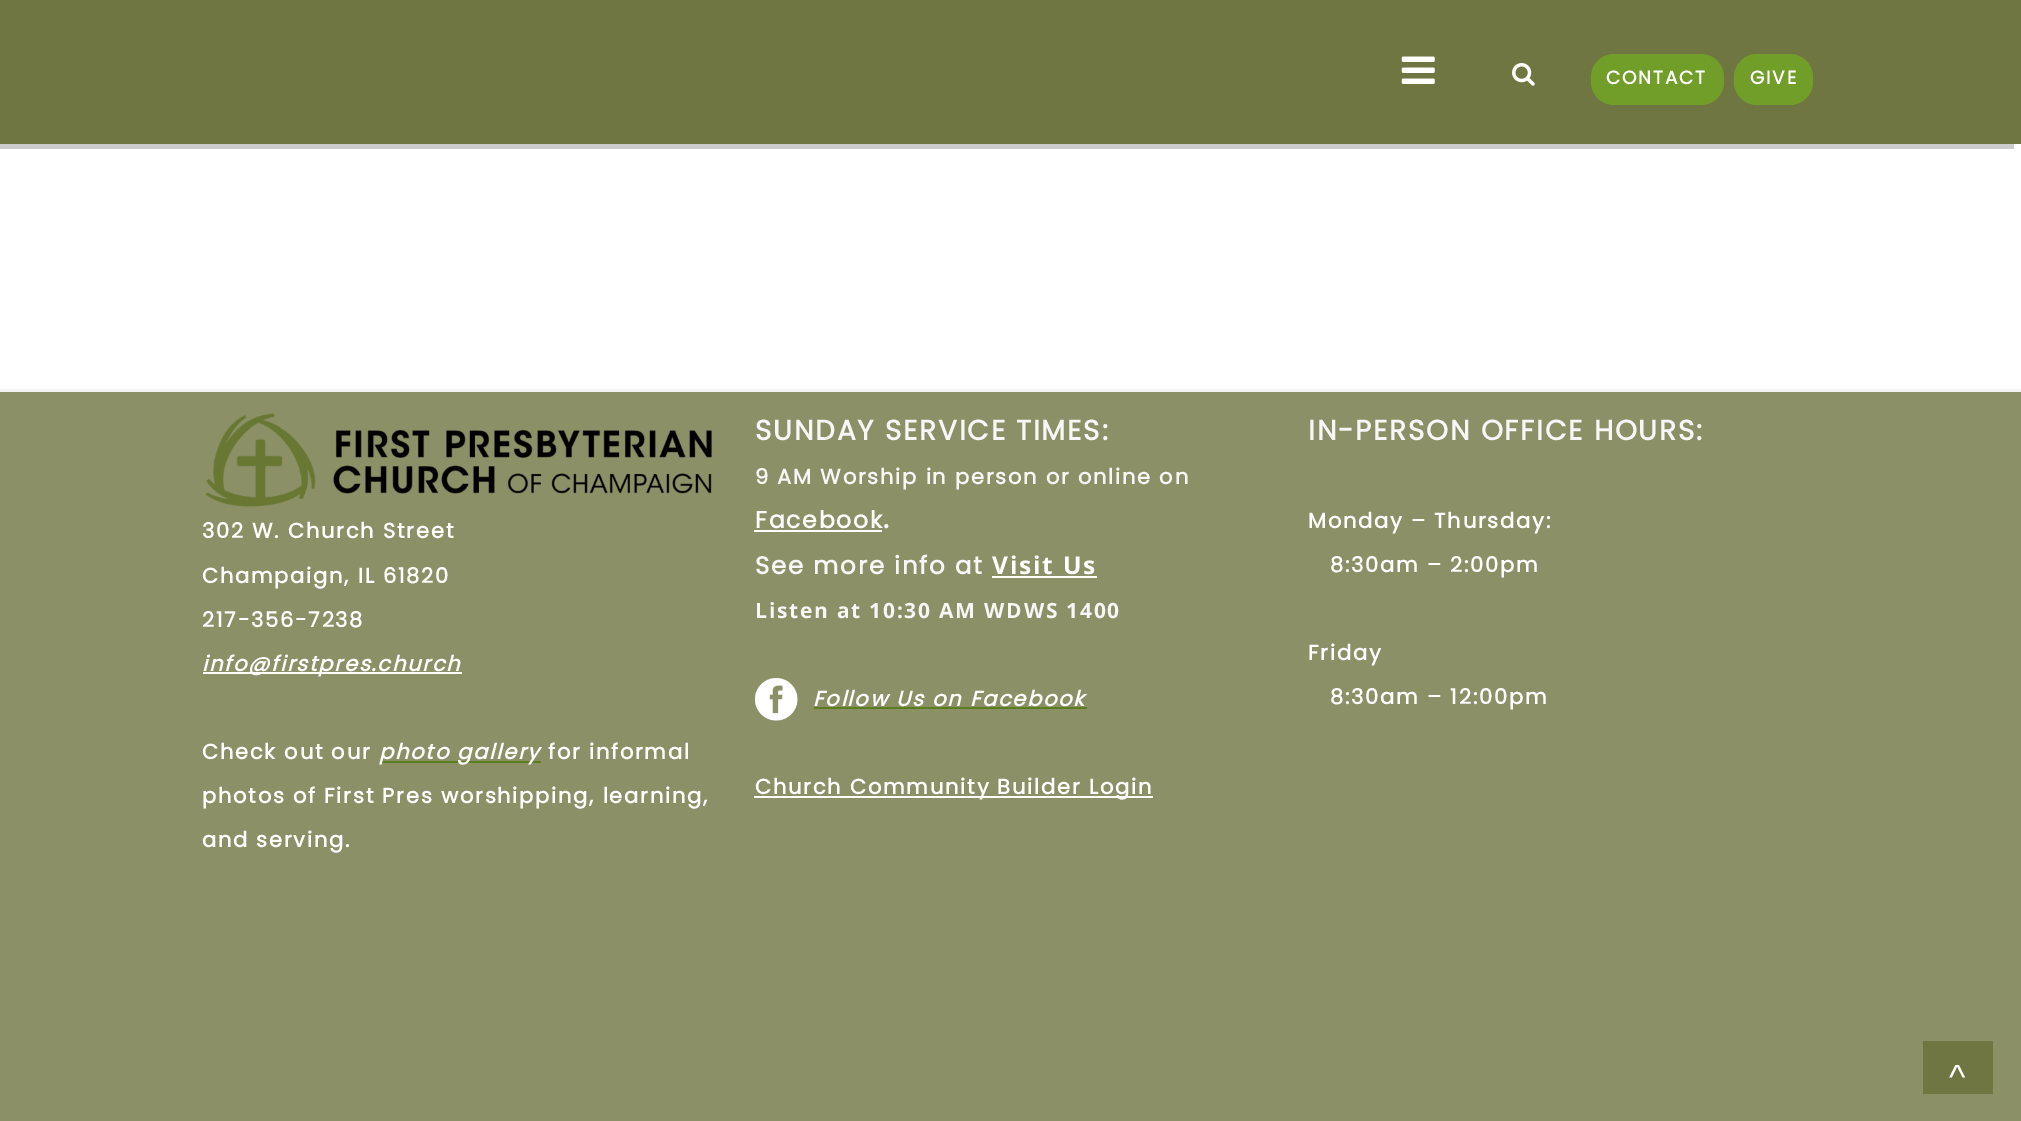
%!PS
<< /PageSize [2021 1121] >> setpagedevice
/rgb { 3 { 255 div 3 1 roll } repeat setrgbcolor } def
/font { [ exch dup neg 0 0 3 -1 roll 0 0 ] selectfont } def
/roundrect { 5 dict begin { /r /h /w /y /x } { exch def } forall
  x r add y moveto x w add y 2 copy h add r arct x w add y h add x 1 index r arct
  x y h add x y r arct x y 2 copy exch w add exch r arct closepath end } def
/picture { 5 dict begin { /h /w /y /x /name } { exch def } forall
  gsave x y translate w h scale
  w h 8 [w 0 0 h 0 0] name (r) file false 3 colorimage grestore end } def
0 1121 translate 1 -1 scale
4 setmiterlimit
255 255 255 rgb
0 0 2021 1121 rectfill
139 144 102 rgb
0 393 2021 728 rectfill
204 204 204 rgb
-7 5 moveto 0 144 rlineto 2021 0 rlineto 0 -5 rlineto -2014 0 rlineto 0 -139 rlineto closepath fill
111 118 65 rgb
0 0 2021 144 rectfill
(img_01.rgb) 1401 56 34 28 picture
(img_02.rgb) 1512 63 23 23 picture
113 158 40 rgb
1591 54 133 51 23 roundrect fill
1734 54 79 51 23 roundrect fill
244 244 244 rgb
0 389 2021 3 rectfill
138 143 101 rgb
0 392 2021 1 rectfill
(img_03.rgb) 205 413 507 94 picture
255 255 255 rgb
203 672 259 2 rectfill
90 125 30 rgb
380 761 161 2 rectfill
255 255 255 rgb
754 530 128 2 rectfill
992 576 105 2 rectfill
(img_04.rgb) 755 678 43 43 picture
90 125 30 rgb
814 707 273 2 rectfill
255 255 255 rgb
754 796 399 2 rectfill
111 118 65 rgb
1923 1041 70 53 rectfill
/Poppins-Bold 18.5 font
255 255 255 rgb
1606 84 moveto 1.75 0 (CONTACT) ashow
1750 84 moveto 1.75 0 (GIVE) ashow
/Poppins-Bold 21 font
202 538 moveto 1.75 0 (302 W. Church Street) ashow
202 583 moveto 1.75 0 (Champaign, IL 61820) ashow
202 627 moveto 1.75 0 (217-356-7238) ashow
/Poppins-BoldItalic 21 font
202 671 moveto 1.75 0 (info@firstpres.church) ashow
/Poppins-Bold 21 font
202 759 moveto 1.75 0 (Check out our) ashow
/Poppins-BoldItalic 21 font
379 759 moveto 1.75 0 (photo gallery) ashow
/Poppins-Bold 21 font
548 759 moveto 1.75 0 (for informal) ashow
202 803 moveto 1.75 0 (photos of First Pres worshipping, learning,) ashow
202 847 moveto 1.75 0 (and serving.) ashow
/Poppins-Bold 28 font
247 247 247 rgb
755 440 moveto 1.75 0 (SUNDAY SERVICE TIMES:) ashow
/Poppins-Bold 21 font
755 484 moveto 1.75 0 (9 AM Worship in person or online on) ashow
/Poppins-Bold 23.5 font
255 255 255 rgb
755 528 moveto 1.75 0 (Facebook) ashow
/Poppins-Bold 28 font
247 247 247 rgb
883 528 moveto 1.75 0 (.) ashow
/Poppins-Bold 24.5 font
755 574 moveto 1.75 0 (See more info at) ashow
/OpenSans-Bold 24.5 font
255 255 255 rgb
992 574 moveto 1.75 0 (Visit Us) ashow
/OpenSans-Bold 21 font
247 247 247 rgb
755 618 moveto 1.75 0 (Listen at 10:30 AM WDWS 1400) ashow
/Poppins-BoldItalic 21 font
255 255 255 rgb
813 706 moveto 1.75 0 (Follow Us on Facebook) ashow
/Poppins-Bold 21 font
755 794 moveto 1.75 0 (Church Community Builder Login) ashow
/Poppins-Bold 28 font
247 247 247 rgb
1308 440 moveto 1.75 0 (IN-PERSON OFFICE HOURS:) ashow
/Poppins-Bold 21 font
255 255 255 rgb
1308 528 moveto 1.75 0 (Monday – Thursday:) ashow
1330 572 moveto 1.75 0 (8:30am – 2:00pm) ashow
1308 660 moveto 1.75 0 (Friday) ashow
1330 704 moveto 1.75 0 (8:30am – 12:00pm) ashow
/LiberationSans-Regular 35 font
1949 1089 moveto 1.75 0 (^) ashow
showpage
